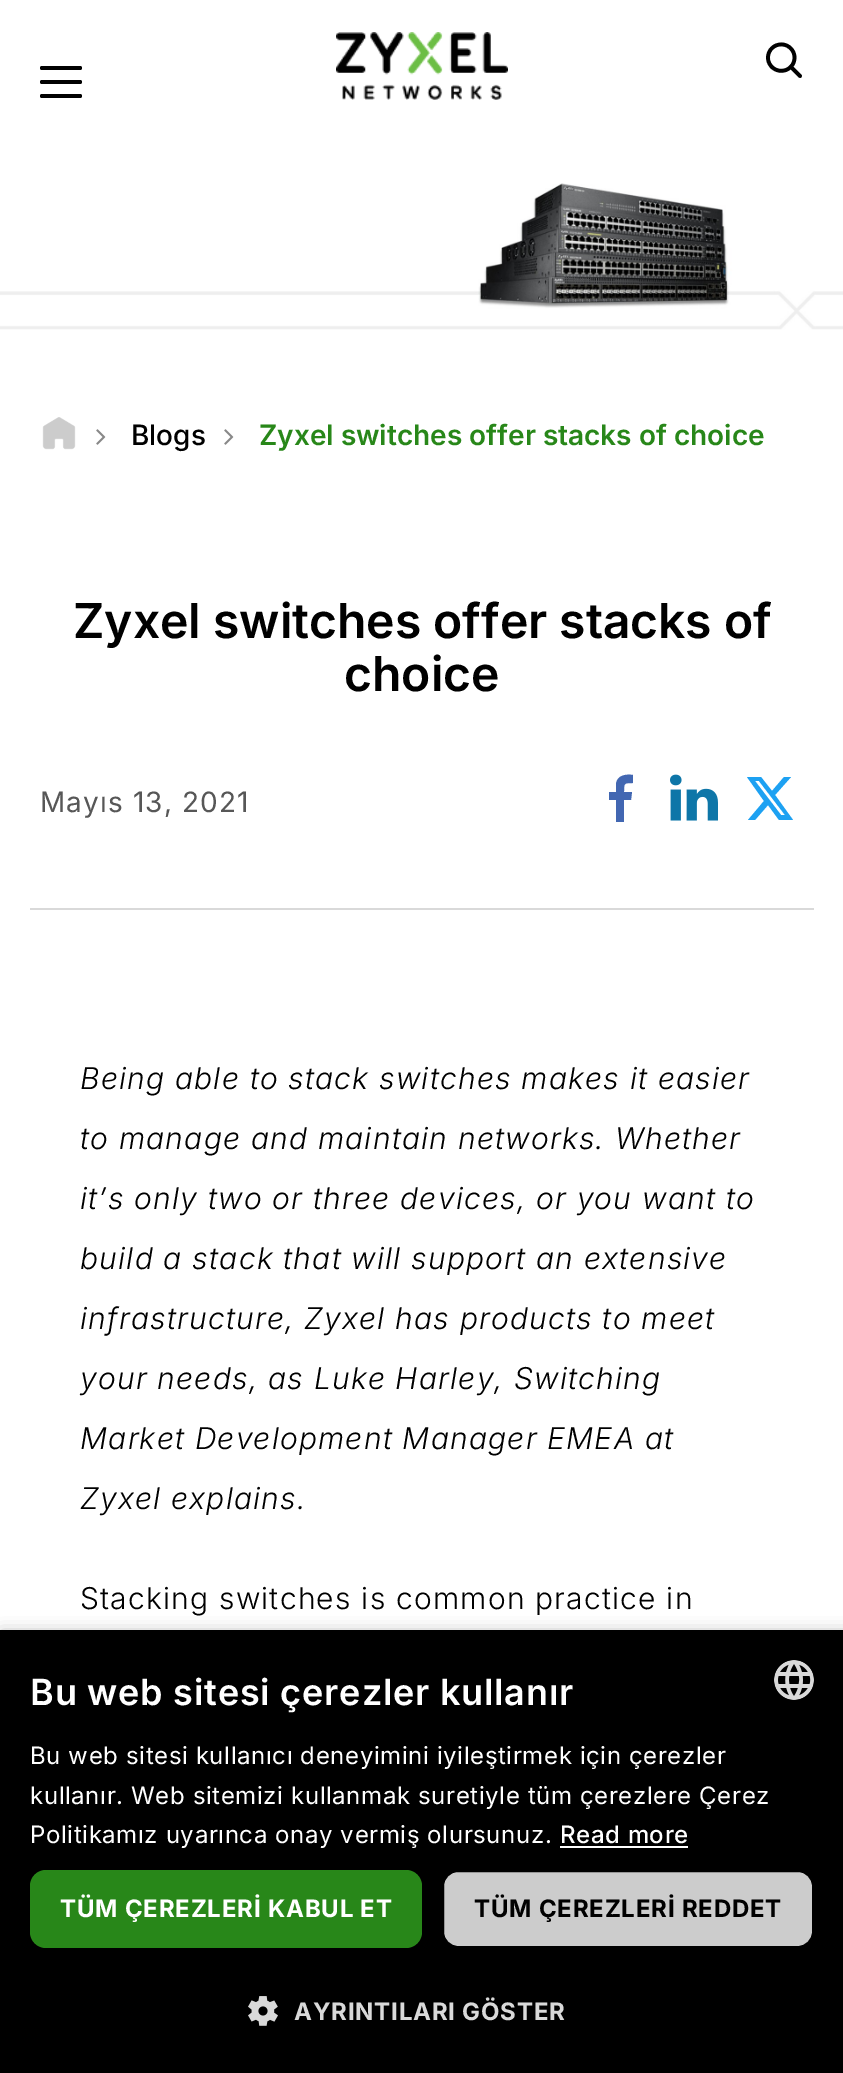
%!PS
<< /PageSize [843 2073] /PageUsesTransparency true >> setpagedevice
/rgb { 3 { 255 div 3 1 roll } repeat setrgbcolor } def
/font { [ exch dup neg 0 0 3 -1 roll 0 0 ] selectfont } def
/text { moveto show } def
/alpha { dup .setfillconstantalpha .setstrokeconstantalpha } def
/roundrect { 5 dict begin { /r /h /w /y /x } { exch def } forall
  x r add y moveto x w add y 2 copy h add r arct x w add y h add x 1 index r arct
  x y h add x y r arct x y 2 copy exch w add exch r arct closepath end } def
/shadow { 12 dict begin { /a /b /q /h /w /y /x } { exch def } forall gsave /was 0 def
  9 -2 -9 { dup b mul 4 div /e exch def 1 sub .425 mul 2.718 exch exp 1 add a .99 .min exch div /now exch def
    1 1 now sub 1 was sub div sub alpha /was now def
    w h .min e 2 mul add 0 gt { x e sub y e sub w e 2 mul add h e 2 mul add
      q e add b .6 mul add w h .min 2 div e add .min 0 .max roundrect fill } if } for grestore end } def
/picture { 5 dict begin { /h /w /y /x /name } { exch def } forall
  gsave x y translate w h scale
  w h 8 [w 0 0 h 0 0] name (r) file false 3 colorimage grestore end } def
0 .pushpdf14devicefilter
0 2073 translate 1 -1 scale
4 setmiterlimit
255 255 255 rgb
0 0 843 2073 rectfill
(img_01.rgb) 336 32 172 68 picture
(img_02.rgb) 766 42 36 36 picture
1 1 1 rgb
40 66 42 4 2 roundrect fill
40 80 42 4 2 roundrect fill
40 94 42 4 2 roundrect fill
(img_03.rgb) 0 183 843 147 picture
(img_04.rgb) 42 417 34 33 picture
(img_05.rgb) 96 429 10 16 picture
(img_05.rgb) 224 429 10 16 picture
217 217 217 rgb
30 908 784 2 rectfill
66 103 178 rgb
633 775 moveto 0 8 rlineto -9 0 -9 0 -9 9 rcurveto 8 0 rlineto -1 8 rlineto -7 0 rlineto 0 22 rlineto -8 0 rlineto 0 -22 rlineto -7 0 rlineto 0 -8 rlineto 7 0 rlineto 0 -8 rlineto 1 -9 10 -10 17 -9 rcurveto closepath fill
(img_06.rgb) 670 774 48 47 picture
29 161 242 rgb
784 777 moveto 7 0 rlineto -16 18 rlineto 18 25 rlineto -14 0 rlineto -11 -15 rlineto -13 15 rlineto -7 0 rlineto 16 -19 rlineto -17 -24 rlineto 14 0 rlineto 11 14 rlineto closepath 781 815 moveto 4 0 rlineto -26 -34 rlineto -4 0 rlineto closepath fill
0 0 0 rgb
2 1634 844 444 0 8 0.35 shadow
0 1630 843 443 rectfill
(img_07.rgb) 774 1660 40 40 picture
255 255 255 rgb
560 1846 128 2 rectfill
40 135 25 rgb
30 1870 392 78 16 roundrect fill
204 204 204 rgb
443 1871 370 76 15 roundrect gsave fill grestore
0 0 0 rgb
2 setlinewidth
stroke
(img_08.rgb) 248 1996 30 30 picture
/Inter-Medium 28 font
(Blogs) 131 445 text
/Inter-SemiBold 28 font
40 135 25 rgb
(Zyxel switches offer stacks of choice) 259 445 text
/Inter-SemiBold 48 font
0 0 0 rgb
(Zyxel switches offer stacks of) 73 638 text
(choice) 344 691 text
/Inter-Regular 28 font
87 87 87 rgb
40 812 moveto 1.1 0 (Mayıs 13, 2021) ashow
/Inter-LightItalic 30 font
0 0 0 rgb
80 1089 moveto 1.2 0 (Being able to stack switches makes it easier) ashow
80 1149 moveto 1.2 0 (to manage and maintain networks. Whether) ashow
80 1209 moveto 1.2 0 (it’s only two or three devices, or you want to) ashow
80 1269 moveto 1.2 0 (build a stack that will support an extensive) ashow
80 1329 moveto 1.2 0 (infrastructure, Zyxel has products to meet) ashow
80 1389 moveto 1.2 0 (your needs, as Luke Harley, Switching) ashow
80 1449 moveto 1.2 0 (Market Development Manager EMEA at) ashow
80 1509 moveto 1.2 0 (Zyxel explains.) ashow
/Inter-Light 30 font
80 1609 moveto 1.2 0 (Stacking switches is common practice in) ashow
/Inter-SemiBold 36 font
255 255 255 rgb
30 1705 moveto 0.8 0 (Bu web sitesi çerezler kullanır) ashow
/Inter-Regular 24 font
30 1764 moveto 0.6 0 (Bu web sitesi kullanıcı deneyimini iyileştirmek için çerezler) ashow
30 1804 moveto 0.6 0 (kullanır. Web sitemizi kullanmak suretiyle tüm çerezlere Çerez) ashow
30 1843 moveto 0.6 0 (Politikamız uyarınca onay vermiş olursunuz.) ashow
/Inter-Medium 24 font
560 1843 moveto 0.6 0 (Read more) ashow
/Inter-Bold 24 font
60 1917 moveto 0.8 0 (TÜM ÇEREZLERİ KABUL ET) ashow
0 0 0 rgb
474 1917 moveto 0.8 0 (TÜM ÇEREZLERİ REDDET) ashow
217 217 217 rgb
294 2020 moveto 0.8 0 (AYRINTILARI GÖSTER) ashow
.poppdf14devicefilter showpage
